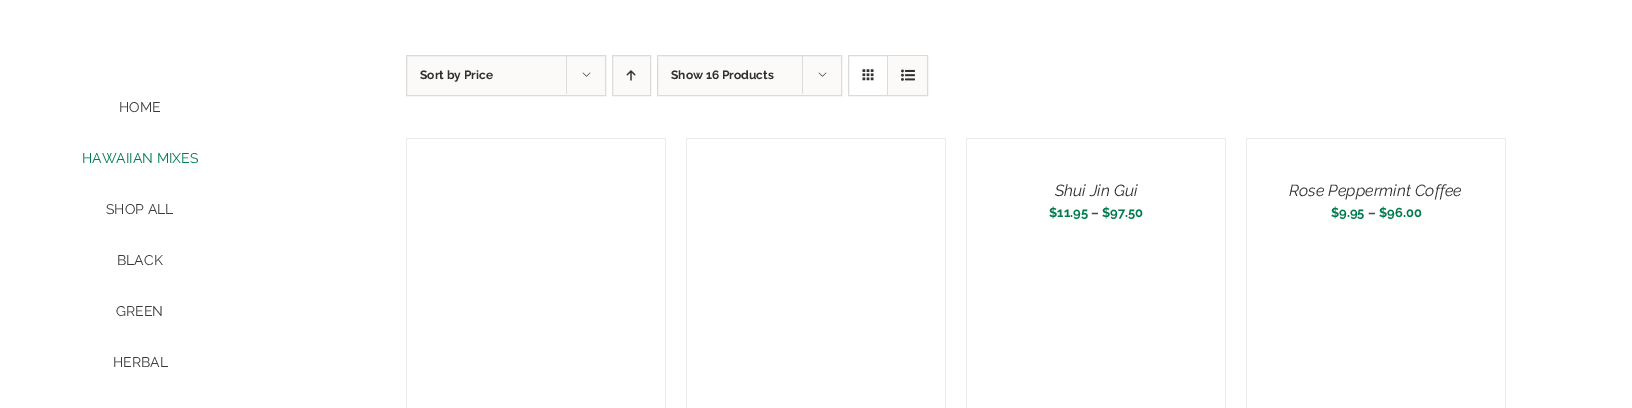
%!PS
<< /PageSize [1632 408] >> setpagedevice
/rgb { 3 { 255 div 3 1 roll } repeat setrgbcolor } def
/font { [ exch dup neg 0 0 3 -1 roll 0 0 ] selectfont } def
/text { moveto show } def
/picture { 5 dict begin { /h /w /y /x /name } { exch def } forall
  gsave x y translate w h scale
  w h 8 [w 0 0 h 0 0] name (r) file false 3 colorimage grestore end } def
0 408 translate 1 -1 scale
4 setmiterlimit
255 255 255 rgb
0 0 1632 408 rectfill
251 250 249 rgb
406.5 55.5 moveto 199 0 rlineto 0 40 rlineto -199 0 rlineto closepath gsave fill grestore
219 219 219 rgb
stroke
566 55 1 39 rectfill
(img_01.rgb) 582 72 9 5 picture
251 250 249 rgb
612.5 55.5 moveto 38 0 rlineto 0 40 rlineto -38 0 rlineto closepath gsave fill grestore
219 219 219 rgb
stroke
(img_02.rgb) 626 70 10 11 picture
251 250 249 rgb
657.5 55.5 moveto 184 0 rlineto 0 40 rlineto -184 0 rlineto closepath gsave fill grestore
219 219 219 rgb
stroke
802 55 1 39 rectfill
(img_01.rgb) 818 72 9 5 picture
848.5 55.5 79 40 rectstroke
887 56 1 39 rectfill
(img_03.rgb) 862 69 12 12 picture
251 250 249 rgb
888 56 39 39 rectfill
(img_04.rgb) 901 69 14 12 picture
235 234 234 rgb
406 138 260 1 rectfill
665 138 1 270 rectfill
406 138 1 270 rectfill
686 138 260 1 rectfill
945 138 1 270 rectfill
686 138 1 270 rectfill
966 138 260 1 rectfill
1225 138 1 270 rectfill
966 138 1 270 rectfill
1246 138 260 1 rectfill
1505 138 1 270 rectfill
1246 138 1 270 rectfill
/Raleway-Regular 14 font
58 58 58 rgb
(HOME) 119 112 text
0 124 76 rgb
(HAWAIIAN MIXES) 82 163 text
58 58 58 rgb
(SHOP ALL) 106 214 text
(BLACK) 117 265 text
(GREEN) 116 316 text
(HERBAL) 113 367 text
/Raleway-Bold 12 font
48 48 48 rgb
(Sort by Price) 420 79 text
(Show 16 Products) 671 79 text
/Raleway-Italic 16 font
(Shui Jin Gui) 1055 196 text
/Raleway-Bold 13 font
0 124 76 rgb
($11.95) 1049 217 text
76 76 76 rgb
(–) 1091 217 text
0 124 76 rgb
($97.50) 1102 217 text
/Raleway-Italic 16 font
48 48 48 rgb
(Rose Peppermint Coffee) 1289 196 text
/Raleway-Bold 13 font
0 124 76 rgb
($9.95) 1331 217 text
76 76 76 rgb
(–) 1368 217 text
0 124 76 rgb
($96.00) 1379 217 text
showpage
